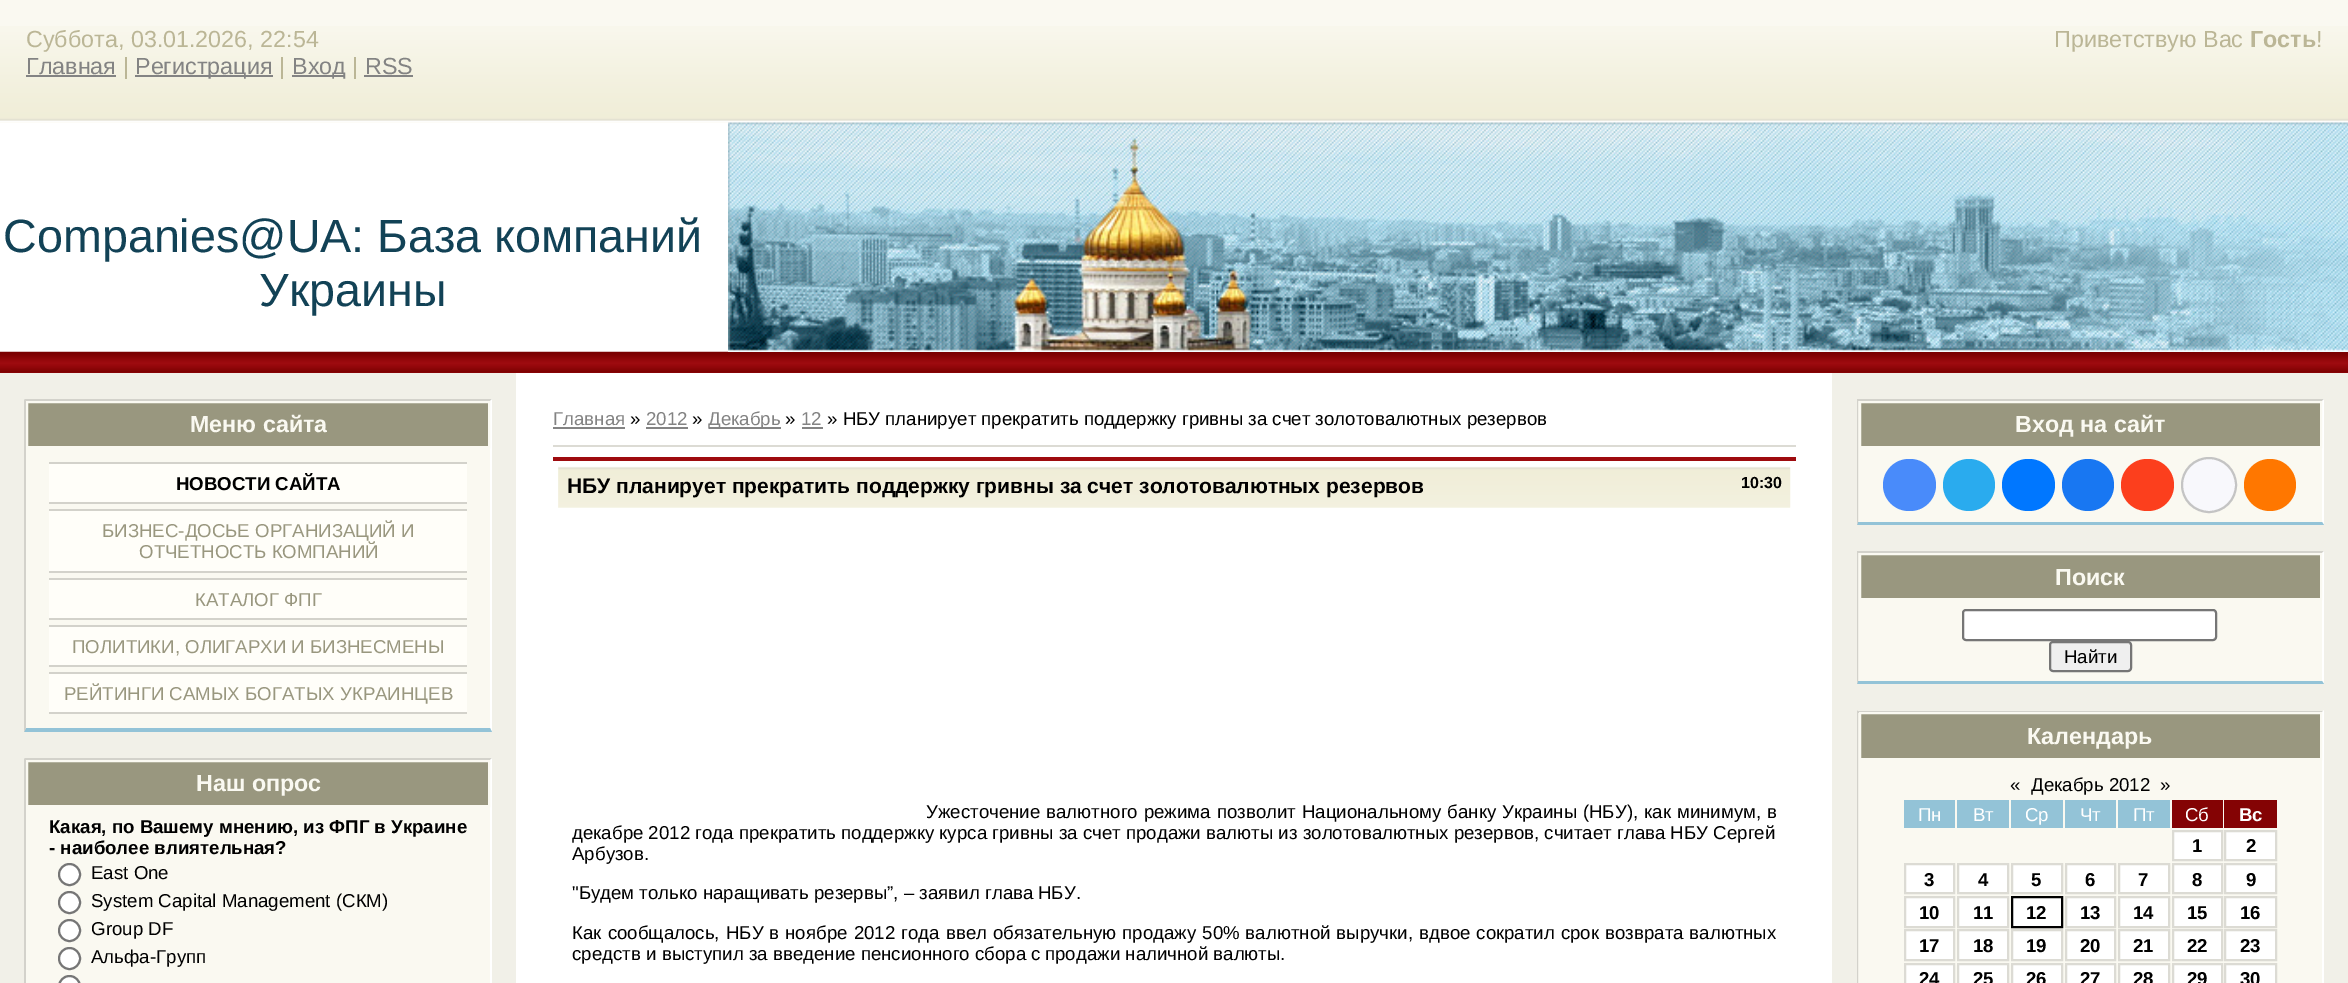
%!PS
<< /PageSize [2348 983] >> setpagedevice
/rgb { 3 { 255 div 3 1 roll } repeat setrgbcolor } def
/font { [ exch dup neg 0 0 3 -1 roll 0 0 ] selectfont } def
/text { moveto show } def
/circle { newpath 0 360 arc closepath } def
/roundrect { 5 dict begin { /r /h /w /y /x } { exch def } forall
  x r add y moveto x w add y 2 copy h add r arct x w add y h add x 1 index r arct
  x y h add x y r arct x y 2 copy exch w add exch r arct closepath end } def
/picture { 5 dict begin { /h /w /y /x /name } { exch def } forall
  gsave x y translate w h scale
  w h 8 [w 0 0 h 0 0] name (r) file false 3 colorimage grestore end } def
0 983 translate 1 -1 scale
4 setmiterlimit
255 255 255 rgb
0 0 2348 983 rectfill
250 249 241 rgb
0 0 2348 123 rectfill
(img_01.rgb) 0 26 2348 97 picture
131 131 131 rgb
26 75 90 2 rectfill
135 75 138 2 rectfill
292 75 53 2 rectfill
364 75 49 2 rectfill
(img_03.rgb) 0 351 2348 22 picture
(img_02.rgb) 728 122 1620 230 picture
241 240 232 rgb
0 373 516 610 rectfill
250 249 241 rgb
26 448 464 280 rectfill
211 210 203 rgb
25 399 467 2 rectfill
255 255 255 rgb
492 399 moveto 0 333 rlineto -2 -4 rlineto 0 -327 rlineto closepath fill
147 195 215 rgb
492 732 moveto -468 0 rlineto 2 -4 rlineto 464 0 rlineto closepath fill
211 210 203 rgb
24 732 moveto 0 -333 rlineto 2 2 rlineto 0 327 rlineto closepath fill
153 151 127 rgb
27 402 moveto 462 0 rlineto 0 45 rlineto -462 0 rlineto closepath gsave fill grestore
250 249 241 rgb
2 setlinewidth
stroke
255 254 249 rgb
49 464 418 38 rectfill
211 210 203 rgb
49 462 418 2 rectfill
49 502 418 2 rectfill
255 254 249 rgb
49 511 418 60 rectfill
211 210 203 rgb
49 509 418 2 rectfill
49 571 418 2 rectfill
255 254 249 rgb
49 580 418 38 rectfill
211 210 203 rgb
49 578 418 2 rectfill
49 618 418 2 rectfill
255 254 249 rgb
49 627 418 38 rectfill
211 210 203 rgb
49 625 418 2 rectfill
49 665 418 2 rectfill
255 254 249 rgb
49 674 418 38 rectfill
211 210 203 rgb
49 672 418 2 rectfill
49 712 418 2 rectfill
250 249 241 rgb
26 807 464 176 rectfill
211 210 203 rgb
25 758 467 2 rectfill
255 255 255 rgb
492 758 moveto 0 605 rlineto -2 -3 rlineto 0 -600 rlineto closepath fill
211 210 203 rgb
24 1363 moveto 0 -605 rlineto 2 2 rlineto 0 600 rlineto closepath fill
153 151 127 rgb
27 761 moveto 462 0 rlineto 0 45 rlineto -462 0 rlineto closepath gsave fill grestore
250 249 241 rgb
stroke
255 255 255 rgb
69.5 874.5 10.5 circle gsave fill grestore
118 118 118 rgb
stroke
255 255 255 rgb
69.5 902.5 10.5 circle gsave fill grestore
118 118 118 rgb
stroke
255 255 255 rgb
69.5 930.5 10.5 circle gsave fill grestore
118 118 118 rgb
stroke
255 255 255 rgb
69.5 958.5 10.5 circle gsave fill grestore
118 118 118 rgb
stroke
255 255 255 rgb
59 976 21 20 10.5 roundrect gsave fill grestore
118 118 118 rgb
stroke
131 131 131 rgb
553 427 72 2 rectfill
646 427 42 2 rectfill
709 427 72 2 rectfill
802 427 21 2 rectfill
220 219 212 rgb
553 445 1243 2 rectfill
158 11 15 rgb
553 457 1243 4 rectfill
250 249 241 rgb
558 466 1232 42 rectfill
(img_04.rgb) 558 466 1233 42 picture
241 240 232 rgb
1832 373 516 610 rectfill
250 249 241 rgb
1859 448 463 74 rectfill
211 210 203 rgb
1857 399 467 2 rectfill
255 255 255 rgb
2324 399 moveto 0 126 rlineto -2 -3 rlineto 0 -121 rlineto closepath fill
147 195 215 rgb
2324 525 moveto -467 0 rlineto 1 -3 rlineto 464 0 rlineto closepath fill
211 210 203 rgb
1857 525 moveto 0 -126 rlineto 1 2 rlineto 0 121 rlineto closepath fill
153 151 127 rgb
1860 402 moveto 461 0 rlineto 0 45 rlineto -461 0 rlineto closepath gsave fill grestore
250 249 241 rgb
stroke
73 139 250 rgb
1883 459 53 52 26 roundrect fill
42 171 238 rgb
1969 485 26 circle fill
0 119 255 rgb
2002 459 53 52 26 roundrect fill
24 119 242 rgb
2088 485 26 circle fill
252 63 29 rgb
2121 459 53 52 26 roundrect fill
248 248 252 rgb
2209 485 27 circle gsave fill grestore
196 196 196 rgb
stroke
255 119 0 rgb
2270 485 26 circle fill
250 249 241 rgb
1859 600 463 81 rectfill
211 210 203 rgb
1857 551 467 2 rectfill
255 255 255 rgb
2324 551 moveto 0 133 rlineto -2 -3 rlineto 0 -128 rlineto closepath fill
147 195 215 rgb
2324 684 moveto -467 0 rlineto 1 -3 rlineto 464 0 rlineto closepath fill
211 210 203 rgb
1857 684 moveto 0 -133 rlineto 1 2 rlineto 0 128 rlineto closepath fill
153 151 127 rgb
1860 554 moveto 461 0 rlineto 0 45 rlineto -461 0 rlineto closepath gsave fill grestore
250 249 241 rgb
stroke
255 255 255 rgb
1963 610 253 30 3 roundrect gsave fill grestore
118 118 118 rgb
stroke
239 239 239 rgb
2050 642 81 29 3 roundrect gsave fill grestore
118 118 118 rgb
stroke
250 249 241 rgb
1859 760 463 223 rectfill
211 210 203 rgb
1857 711 467 2 rectfill
255 255 255 rgb
2324 710 moveto 0 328 rlineto -2 -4 rlineto 0 -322 rlineto closepath fill
211 210 203 rgb
1857 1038 moveto 0 -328 rlineto 1 2 rlineto 0 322 rlineto closepath fill
153 151 127 rgb
1860 713 moveto 461 0 rlineto 0 46 rlineto -461 0 rlineto closepath gsave fill grestore
250 249 241 rgb
stroke
147 195 215 rgb
1904 800 51 28 rectfill
1957 800 52 28 rectfill
2011 800 52 28 rectfill
2065 800 51 28 rectfill
2118 800 52 28 rectfill
132 3 4 rgb
2172 800 51 28 rectfill
2224 800 53 28 rectfill
255 255 255 rgb
2173 831 moveto 49 0 rlineto 0 29 rlineto -49 0 rlineto closepath gsave fill grestore
220 219 212 rgb
stroke
255 255 255 rgb
2225 831 moveto 51 0 rlineto 0 29 rlineto -51 0 rlineto closepath gsave fill grestore
220 219 212 rgb
stroke
255 255 255 rgb
1905 864 moveto 49 0 rlineto 0 29 rlineto -49 0 rlineto closepath gsave fill grestore
220 219 212 rgb
stroke
255 255 255 rgb
1958 864 moveto 50 0 rlineto 0 29 rlineto -50 0 rlineto closepath gsave fill grestore
220 219 212 rgb
stroke
255 255 255 rgb
2012 864 moveto 50 0 rlineto 0 29 rlineto -50 0 rlineto closepath gsave fill grestore
220 219 212 rgb
stroke
255 255 255 rgb
2066 864 moveto 49 0 rlineto 0 29 rlineto -49 0 rlineto closepath gsave fill grestore
220 219 212 rgb
stroke
255 255 255 rgb
2119 864 moveto 50 0 rlineto 0 29 rlineto -50 0 rlineto closepath gsave fill grestore
220 219 212 rgb
stroke
255 255 255 rgb
2173 864 moveto 49 0 rlineto 0 29 rlineto -49 0 rlineto closepath gsave fill grestore
220 219 212 rgb
stroke
255 255 255 rgb
2225 864 moveto 51 0 rlineto 0 29 rlineto -51 0 rlineto closepath gsave fill grestore
220 219 212 rgb
stroke
255 255 255 rgb
1905 897 moveto 49 0 rlineto 0 30 rlineto -49 0 rlineto closepath gsave fill grestore
220 219 212 rgb
stroke
255 255 255 rgb
1958 897 moveto 50 0 rlineto 0 30 rlineto -50 0 rlineto closepath gsave fill grestore
220 219 212 rgb
stroke
255 255 255 rgb
2012 897 moveto 50 0 rlineto 0 30 rlineto -50 0 rlineto closepath gsave fill grestore
0 0 0 rgb
stroke
255 255 255 rgb
2066 897 moveto 49 0 rlineto 0 30 rlineto -49 0 rlineto closepath gsave fill grestore
220 219 212 rgb
stroke
255 255 255 rgb
2119 897 moveto 50 0 rlineto 0 30 rlineto -50 0 rlineto closepath gsave fill grestore
220 219 212 rgb
stroke
255 255 255 rgb
2173 897 moveto 49 0 rlineto 0 30 rlineto -49 0 rlineto closepath gsave fill grestore
220 219 212 rgb
stroke
255 255 255 rgb
2225 897 moveto 51 0 rlineto 0 30 rlineto -51 0 rlineto closepath gsave fill grestore
220 219 212 rgb
stroke
255 255 255 rgb
1905 930 moveto 49 0 rlineto 0 30 rlineto -49 0 rlineto closepath gsave fill grestore
220 219 212 rgb
stroke
255 255 255 rgb
1958 930 moveto 50 0 rlineto 0 30 rlineto -50 0 rlineto closepath gsave fill grestore
220 219 212 rgb
stroke
255 255 255 rgb
2012 930 moveto 50 0 rlineto 0 30 rlineto -50 0 rlineto closepath gsave fill grestore
220 219 212 rgb
stroke
255 255 255 rgb
2066 930 moveto 49 0 rlineto 0 30 rlineto -49 0 rlineto closepath gsave fill grestore
220 219 212 rgb
stroke
255 255 255 rgb
2119 930 moveto 50 0 rlineto 0 30 rlineto -50 0 rlineto closepath gsave fill grestore
220 219 212 rgb
stroke
255 255 255 rgb
2173 930 moveto 49 0 rlineto 0 30 rlineto -49 0 rlineto closepath gsave fill grestore
220 219 212 rgb
stroke
255 255 255 rgb
2225 930 moveto 51 0 rlineto 0 30 rlineto -51 0 rlineto closepath gsave fill grestore
220 219 212 rgb
stroke
255 255 255 rgb
1905 964 moveto 49 0 rlineto 0 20 rlineto -49 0 rlineto closepath gsave fill grestore
220 219 212 rgb
stroke
255 255 255 rgb
1958 964 moveto 50 0 rlineto 0 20 rlineto -50 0 rlineto closepath gsave fill grestore
220 219 212 rgb
stroke
255 255 255 rgb
2012 964 moveto 50 0 rlineto 0 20 rlineto -50 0 rlineto closepath gsave fill grestore
220 219 212 rgb
stroke
255 255 255 rgb
2066 964 moveto 49 0 rlineto 0 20 rlineto -49 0 rlineto closepath gsave fill grestore
220 219 212 rgb
stroke
255 255 255 rgb
2119 964 moveto 50 0 rlineto 0 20 rlineto -50 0 rlineto closepath gsave fill grestore
220 219 212 rgb
stroke
255 255 255 rgb
2173 964 moveto 49 0 rlineto 0 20 rlineto -49 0 rlineto closepath gsave fill grestore
220 219 212 rgb
stroke
255 255 255 rgb
2225 964 moveto 51 0 rlineto 0 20 rlineto -51 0 rlineto closepath gsave fill grestore
220 219 212 rgb
stroke
/LiberationSans-Regular 23.3 font
187 182 150 rgb
(Суббота, 03.01.2026, 22:54) 26 47 text
131 131 131 rgb
(Главная) 26 74 text
187 182 150 rgb
(|) 123 74 text
131 131 131 rgb
(Регистрация) 135 74 text
187 182 150 rgb
(|) 279 74 text
131 131 131 rgb
(Вход) 292 74 text
187 182 150 rgb
(|) 352 74 text
131 131 131 rgb
(RSS) 365 74 text
187 182 150 rgb
(Приветствую Вас) 2054 47 text
/LiberationSans-Bold 23.3 font
(Гость) 2250 47 text
/LiberationSans-Regular 23.3 font
(!) 2316 47 text
/LiberationSans-Regular 46.7 font
18 66 86 rgb
(Companies@UA: База компаний) 3 252 text
(Украины) 259 306 text
/LiberationSans-Bold 23.3 font
250 249 241 rgb
(Меню сайта) 190 432 text
/LiberationSans-Bold 18.67 font
0 0 0 rgb
(НОВОСТИ САЙТА) 176 490 text
/LiberationSans-Regular 18.67 font
153 151 127 rgb
(БИЗНЕС-ДОСЬЕ ОРГАНИЗАЦИЙ И) 102 537 text
(ОТЧЕТНОСТЬ КОМПАНИЙ) 139 558 text
(КАТАЛОГ ФПГ) 195 606 text
(ПОЛИТИКИ, ОЛИГАРХИ И БИЗНЕСМЕНЫ) 72 653 text
(РЕЙТИНГИ САМЫХ БОГАТЫХ УКРАИНЦЕВ) 64 700 text
/LiberationSans-Bold 23.3 font
250 249 241 rgb
(Наш опрос) 196 791 text
/LiberationSans-Bold 18.67 font
0 0 0 rgb
(Какая, по Вашему мнению, из ФПГ в Украине) 49 833 text
(- наиболее влиятельная?) 49 854 text
/LiberationSans-Regular 18.67 font
(East One) 91 879 text
(System Capital Management \(СКМ\)) 91 907 text
(Group DF) 91 935 text
(Альфа-Групп) 91 963 text
131 131 131 rgb
(Главная) 553 425 text
0 0 0 rgb
(») 630 425 text
131 131 131 rgb
(2012) 646 425 text
0 0 0 rgb
(») 692 425 text
131 131 131 rgb
(Декабрь) 708 425 text
0 0 0 rgb
(») 785 425 text
131 131 131 rgb
(12) 801 425 text
0 0 0 rgb
(» НБУ планирует прекратить поддержку гривны за счет золотовалютных резервов) 827 425 text
/LiberationSans-Bold 21 font
(НБУ планирует прекратить поддержку гривны за счет золотовалютных резервов) 567 493 text
/LiberationSans-Bold 16 font
(10:30) 1741 488 text
/LiberationSans-Regular 18.67 font
926 818 moveto 0.75 0 32 (Ужесточение валютного режима позволит Национальному банку Украины \() widthshow
(НБУ\),) 1589 818 text
1644 818 moveto 1 0 32 (как минимум, в) widthshow
(декабре 2012 года прекратить поддержку курса гривны за счет продажи валюты из золотовалютных резервов, считает глава НБУ Сергей) 572 839 text
(Арбузов.) 572 860 text
("Будем только наращивать резервы”, – заявил глава) 572 899 text
(НБУ.) 1038 899 text
572 939 moveto 1 0 32 (Как сообщалось,) widthshow
(НБУ) 726 939 text
769 939 moveto 1 0 32 (в ноябре 2012 года) widthshow
946 939 moveto 0.75 0 32 (ввел обязательную продажу 50% валютной выручки, вдвое сократил срок) widthshow
1605 939 moveto 0.75 0 32 (возврата валютных) widthshow
(средств и выступил за введение пенсионного сбора с) 572 960 text
(продажи наличной валюты.) 1045 960 text
/LiberationSans-Bold 23.3 font
250 249 241 rgb
(Вход на сайт) 2015 432 text
(Поиск) 2055 585 text
/LiberationSans-Regular 18.67 font
0 0 0 rgb
(Найти) 2064 663 text
/LiberationSans-Bold 23.3 font
250 249 241 rgb
(Календарь) 2027 744 text
/LiberationSans-Regular 18.67 font
0 0 0 rgb
(«) 2010 791 text
(Декабрь 2012) 2031 791 text
(») 2160 791 text
255 255 255 rgb
(Пн) 1918 821 text
(Вт) 1973 821 text
(Ср) 2025 821 text
(Чт) 2080 821 text
(Пт) 2133 821 text
(Сб) 2185 821 text
/LiberationSans-Bold 18.67 font
(Вс) 2239 821 text
0 0 0 rgb
(1) 2192 852 text
(2) 2246 852 text
(3) 1924 886 text
(4) 1978 886 text
(5) 2031 886 text
(6) 2085 886 text
(7) 2138 886 text
(8) 2192 886 text
(9) 2246 886 text
(10) 1919 919 text
(11) 1973 919 text
(12) 2026 919 text
(13) 2080 919 text
(14) 2133 919 text
(15) 2187 919 text
(16) 2240 919 text
(17) 1919 952 text
(18) 1973 952 text
(19) 2026 952 text
(20) 2080 952 text
(21) 2133 952 text
(22) 2187 952 text
(23) 2240 952 text
(24) 1919 985 text
(25) 1973 985 text
(26) 2026 985 text
(27) 2080 985 text
(28) 2133 985 text
(29) 2187 985 text
(30) 2240 985 text
showpage
